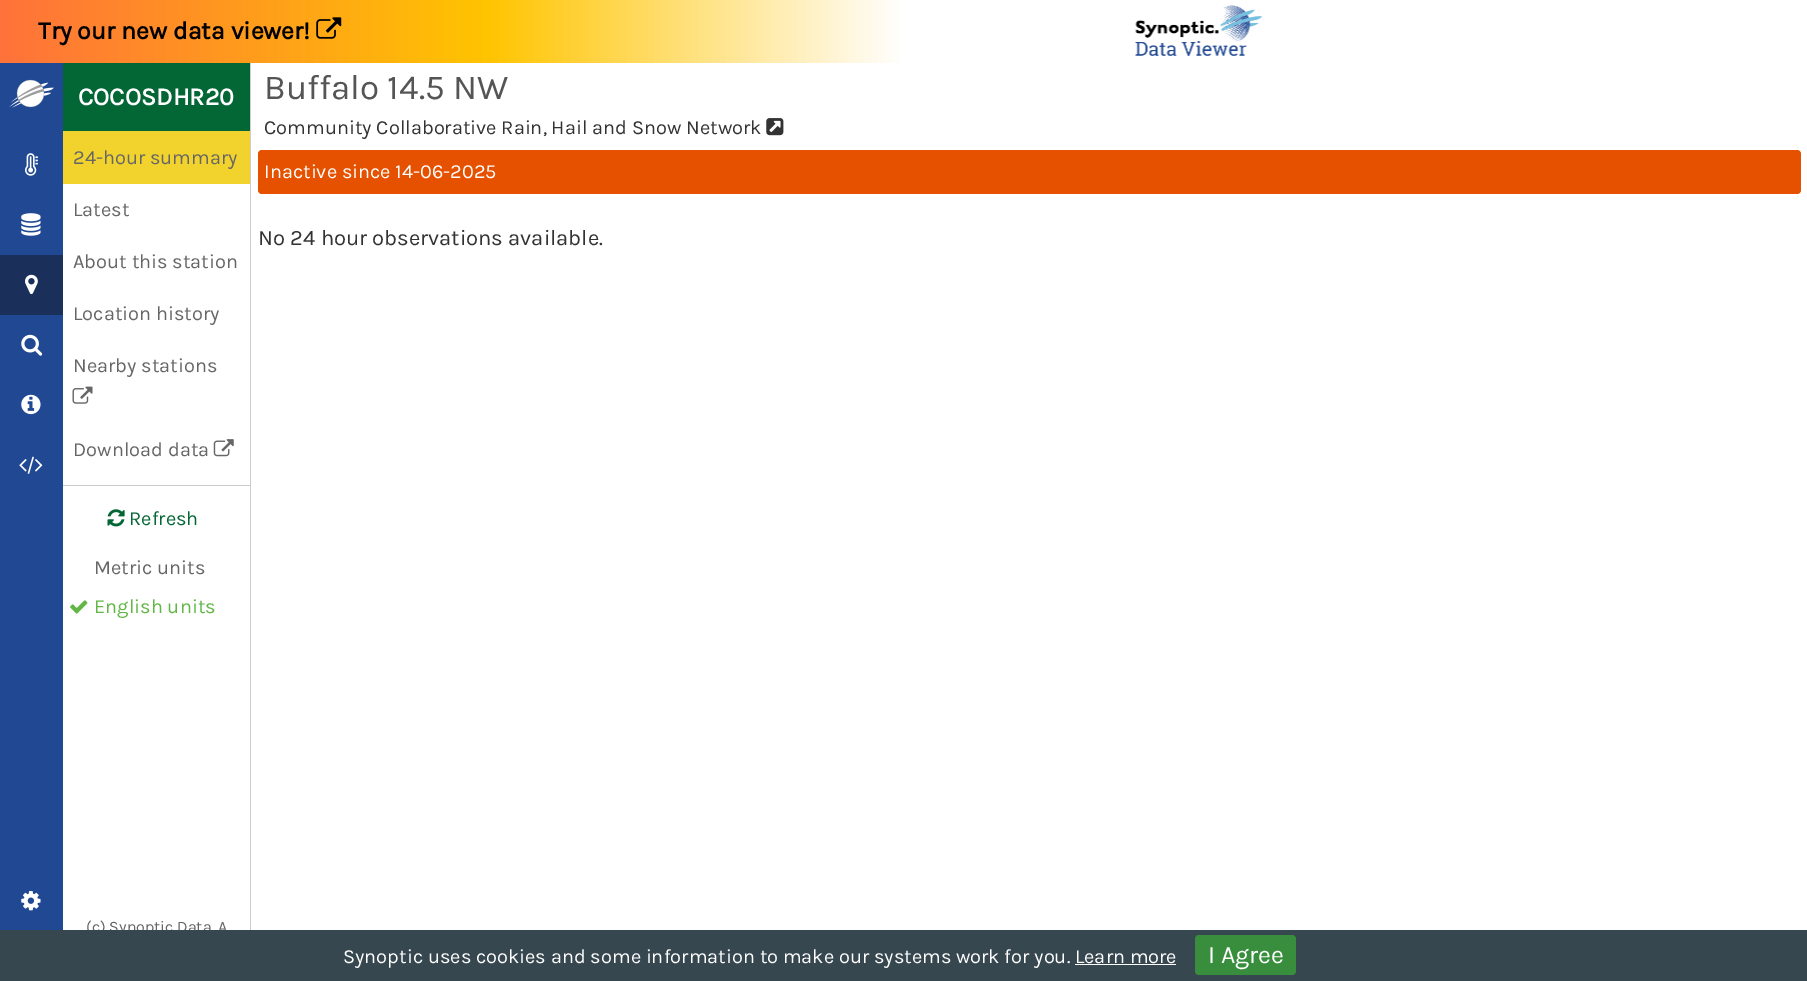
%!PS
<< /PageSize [1807 981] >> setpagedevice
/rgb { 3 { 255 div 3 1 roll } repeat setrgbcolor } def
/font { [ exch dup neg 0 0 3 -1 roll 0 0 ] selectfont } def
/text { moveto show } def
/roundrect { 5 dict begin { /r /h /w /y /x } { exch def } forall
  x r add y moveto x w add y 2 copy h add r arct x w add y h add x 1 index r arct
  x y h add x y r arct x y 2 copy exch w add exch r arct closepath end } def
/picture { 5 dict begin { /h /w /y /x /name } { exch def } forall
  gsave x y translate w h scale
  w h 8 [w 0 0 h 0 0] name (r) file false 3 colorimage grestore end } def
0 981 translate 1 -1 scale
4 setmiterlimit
255 255 255 rgb
0 0 1807 981 rectfill
gsave 0 0 moveto 900 0 rlineto 0 63 rlineto -900 0 rlineto closepath clip newpath
<< /ShadingType 2 /ColorSpace /DeviceRGB /Coords [0 31 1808 31] /Extend [true true] /Function << /FunctionType 3 /Domain [0 1] /Functions [<< /FunctionType 2 /Domain [0 1] /C0 [1 0.447 0.227] /C1 [1 0.769 0] /N 1 >> << /FunctionType 2 /Domain [0 1] /C0 [1 0.769 0] /C1 [1 1 1] /N 1 >> << /FunctionType 2 /Domain [0 1] /C0 [1 1 1] /C1 [1 1 1] /N 1 >>] /Bounds [0.27 0.5] /Encode [0 1 0 1 0 1] >> >> shfill grestore
(img_01.rgb) 316 17 26 22 picture
(img_02.rgb) 1135 5 128 51 picture
32 72 147 rgb
0 63 63 867 rectfill
(img_03.rgb) 9 79 45 29 picture
(img_04.rgb) 25 153 13 23 picture
(img_05.rgb) 21 213 20 23 picture
26 48 91 rgb
0 255 63 60 rectfill
(img_06.rgb) 25 274 13 21 picture
(img_07.rgb) 21 334 22 22 picture
(img_08.rgb) 21 394 20 21 picture
(img_09.rgb) 19 456 24 18 picture
(img_10.rgb) 21 891 20 20 picture
2 102 53 rgb
63 63 187 68 rectfill
242 211 46 rgb
63 131 187 53 rectfill
(img_11.rgb) 72 386 21 18 picture
(img_12.rgb) 213 439 21 18 picture
204 204 204 rgb
63 485 187 1 rectfill
(img_13.rgb) 107 509 18 18 picture
(img_14.rgb) 70 600 18 14 picture
250 63 1 867 rectfill
(img_15.rgb) 766 118 18 18 picture
230 81 0 rgb
258 150 1543 44 4 roundrect fill
/Karla-Bold 25 font
0 0 0 rgb
(Try our new data viewer!) 38 39 text
255 255 255 rgb
(COCOSDHR20) 78 105 text
/Karla-Regular 20 font
102 102 102 rgb
(24-hour summary) 73 164 text
(Latest) 73 216 text
(About this station) 73 268 text
(Location history) 73 320 text
(Nearby stations) 73 372 text
(Download data) 73 456 text
2 102 53 rgb
(Refresh) 129 525 text
102 102 102 rgb
(Metric units) 94 574 text
97 182 70 rgb
(English units) 94 613 text
/Karla-Regular 16 font
102 102 102 rgb
(\(c\) Synoptic Data. A) 86 932 text
/Karla-Regular 35 font
85 85 85 rgb
(Buffalo 14.5 NW) 264 99 text
/Karla-Regular 20 font
51 51 51 rgb
(Community Collaborative Rain, Hail and Snow Network) 264 134 text
255 255 255 rgb
(Inactive since 14-06-2025) 264 178 text
/Karla-Regular 22 font
51 51 51 rgb
(No 24 hour observations available.) 258 245 text
55 71 79 rgb
0 930 1807 51 rectfill
/Karla-Regular 20 font
255 255 255 rgb
(Synoptic uses cookies and some information to make our systems work for you. Learn more) 343 963 text
56 142 60 rgb
1195 935 101 40 4 roundrect fill
/Karla-Regular 25 font
255 255 255 rgb
(I Agree) 1208 963 text
1075 964 101 1 rectfill
showpage
